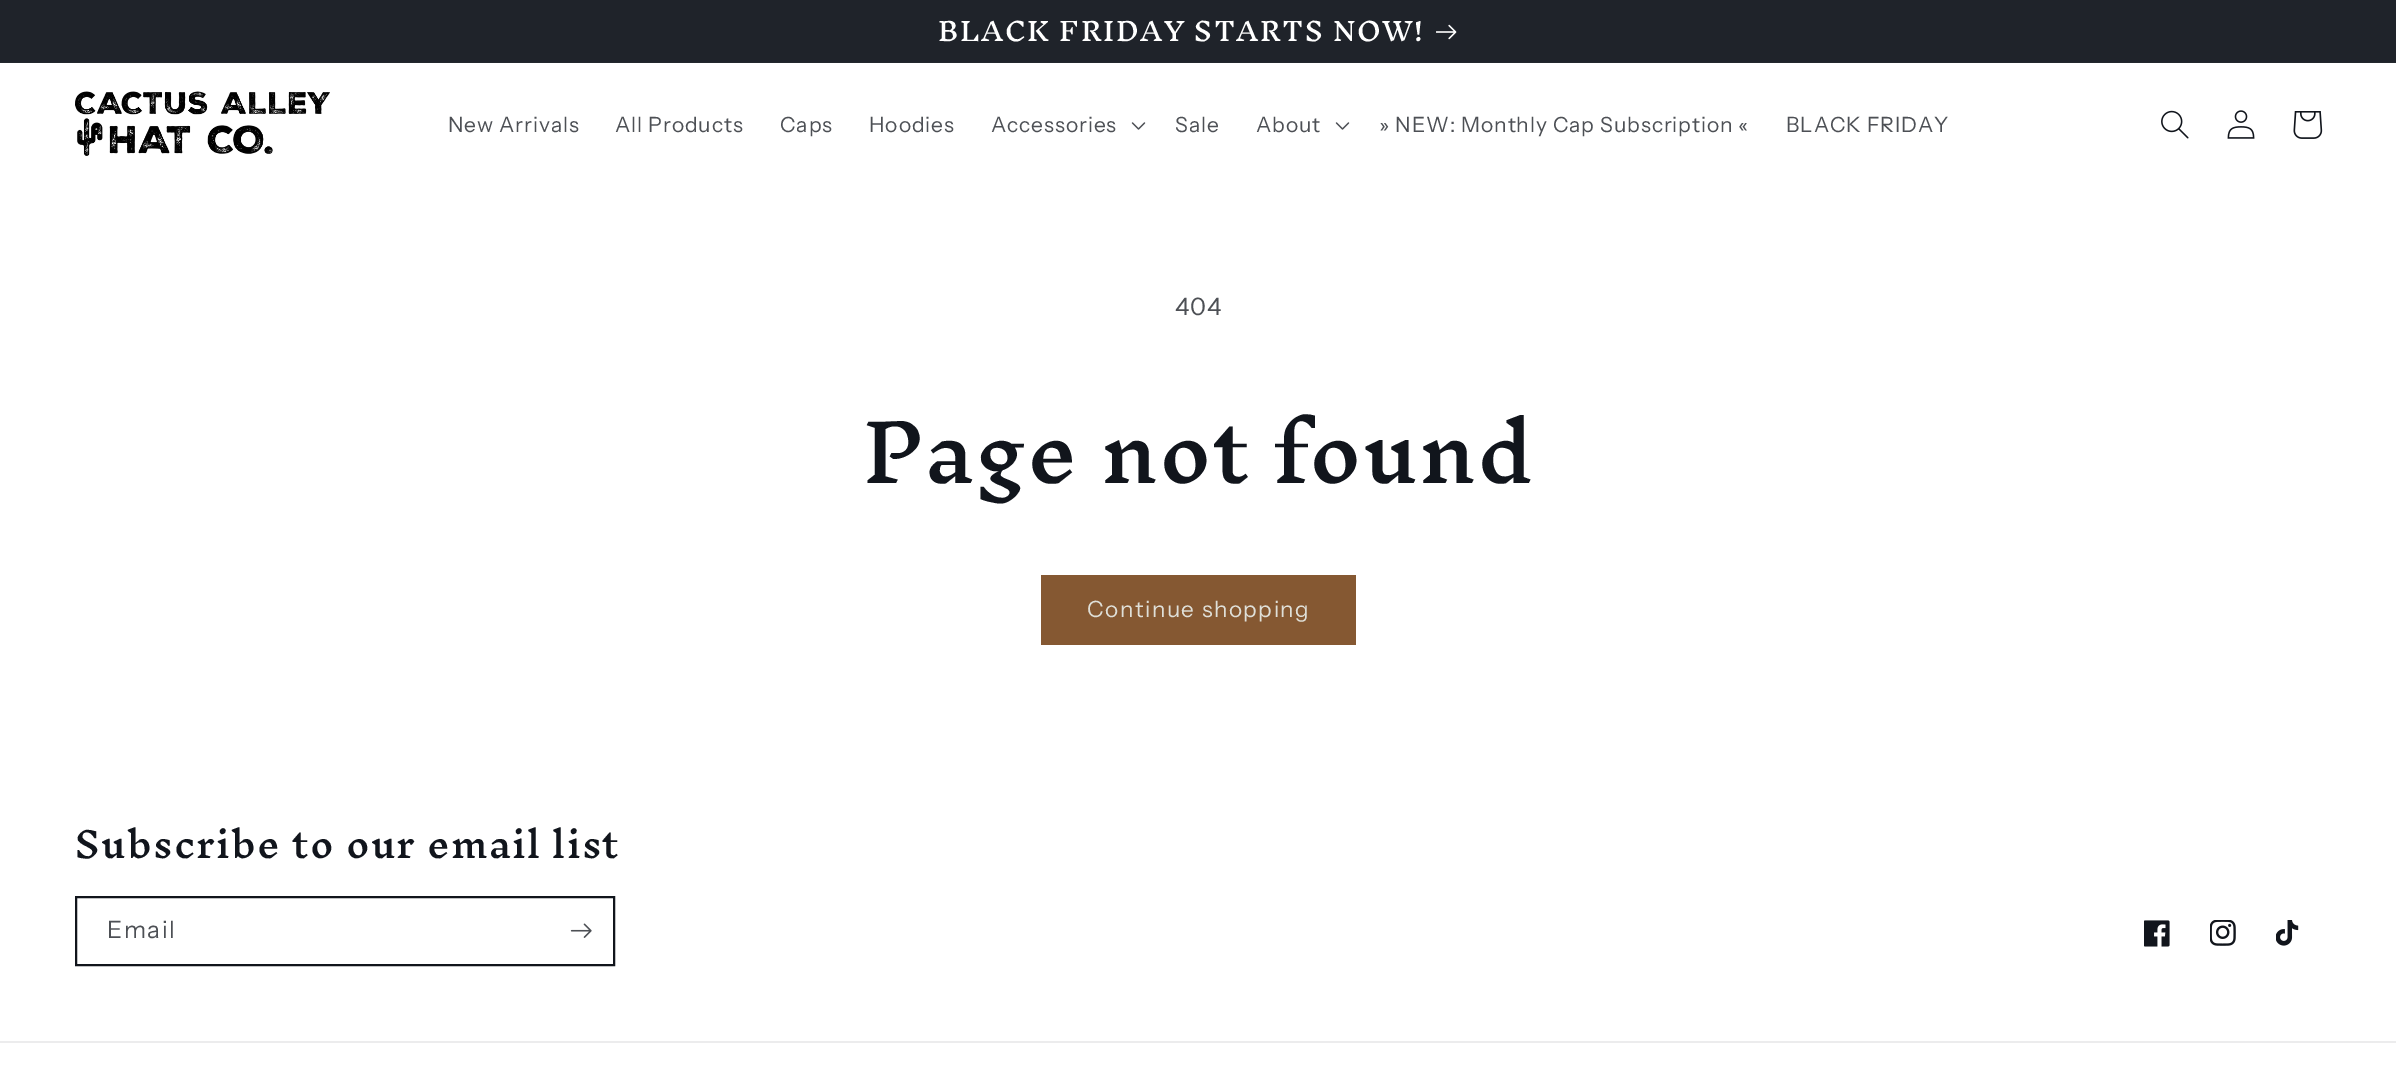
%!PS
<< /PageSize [2396 1066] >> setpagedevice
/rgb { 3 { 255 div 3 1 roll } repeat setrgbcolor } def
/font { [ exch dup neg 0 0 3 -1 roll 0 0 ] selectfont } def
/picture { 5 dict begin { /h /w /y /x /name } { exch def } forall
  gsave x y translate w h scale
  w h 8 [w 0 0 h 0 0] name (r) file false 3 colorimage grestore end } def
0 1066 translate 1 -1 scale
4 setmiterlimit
255 255 255 rgb
0 0 2396 1066 rectfill
36 40 46 rgb
0 62 2396 1 rectfill
31 35 42 rgb
0 0 2396 62 rectfill
(img_01.rgb) 1436 24 21 16 picture
(img_02.rgb) 75 91 255 65 picture
(img_03.rgb) 1131 122 15 8 picture
(img_03.rgb) 1335 122 15 8 picture
(img_04.rgb) 2161 110 28 29 picture
(img_05.rgb) 2227 110 28 29 picture
(img_06.rgb) 2293 111 30 28 picture
133 88 50 rgb
1041 575 315 70 rectfill
17 21 28 rgb
2 setlinewidth
76 897 538 68 rectstroke
(img_07.rgb) 570 923 22 15 picture
(img_08.rgb) 2144 920 26 27 picture
(img_09.rgb) 2210 920 26 26 picture
(img_10.rgb) 2276 920 23 26 picture
236 236 237 rgb
0 1041 2396 2 rectfill
/InknutAntiqua-Medium 25.4 font
255 255 255 rgb
938 41 moveto 1.5 0 (BLACK FRIDAY STARTS NOW!) ashow
/InstrumentSans-Regular 21 font
77 80 85 rgb
448 132 moveto 0.9 0 (New Arrivals) ashow
615 132 moveto 0.9 0 (All Products) ashow
780 132 moveto 0.9 0 (Caps) ashow
869 132 moveto 0.9 0 (Hoodies) ashow
991 132 moveto 0.9 0 (Accessories) ashow
1175 132 moveto 0.9 0 (Sale) ashow
1256 132 moveto 0.9 0 (About) ashow
1379 132 moveto 0.9 0 (» NEW: Monthly Cap Subscription «) ashow
1786 132 moveto 0.9 0 (BLACK FRIDAY) ashow
/InstrumentSans-Regular 24 font
1175 315 moveto 0.9 0 (404) ashow
/InknutAntiqua-Medium 78 font
17 21 28 rgb
863 483 moveto 1.2 0 (Page not found) ashow
/InstrumentSans-Regular 22.5 font
223 223 216 rgb
1087 617 moveto 1.5 0 (Continue shopping) ashow
/InknutAntiqua-Medium 35.1 font
17 21 28 rgb
75 858 moveto 1.2 0 (Subscribe to our email list) ashow
/InstrumentSans-Regular 24 font
77 80 85 rgb
107 938 moveto 1.5 0 (Email) ashow
showpage
